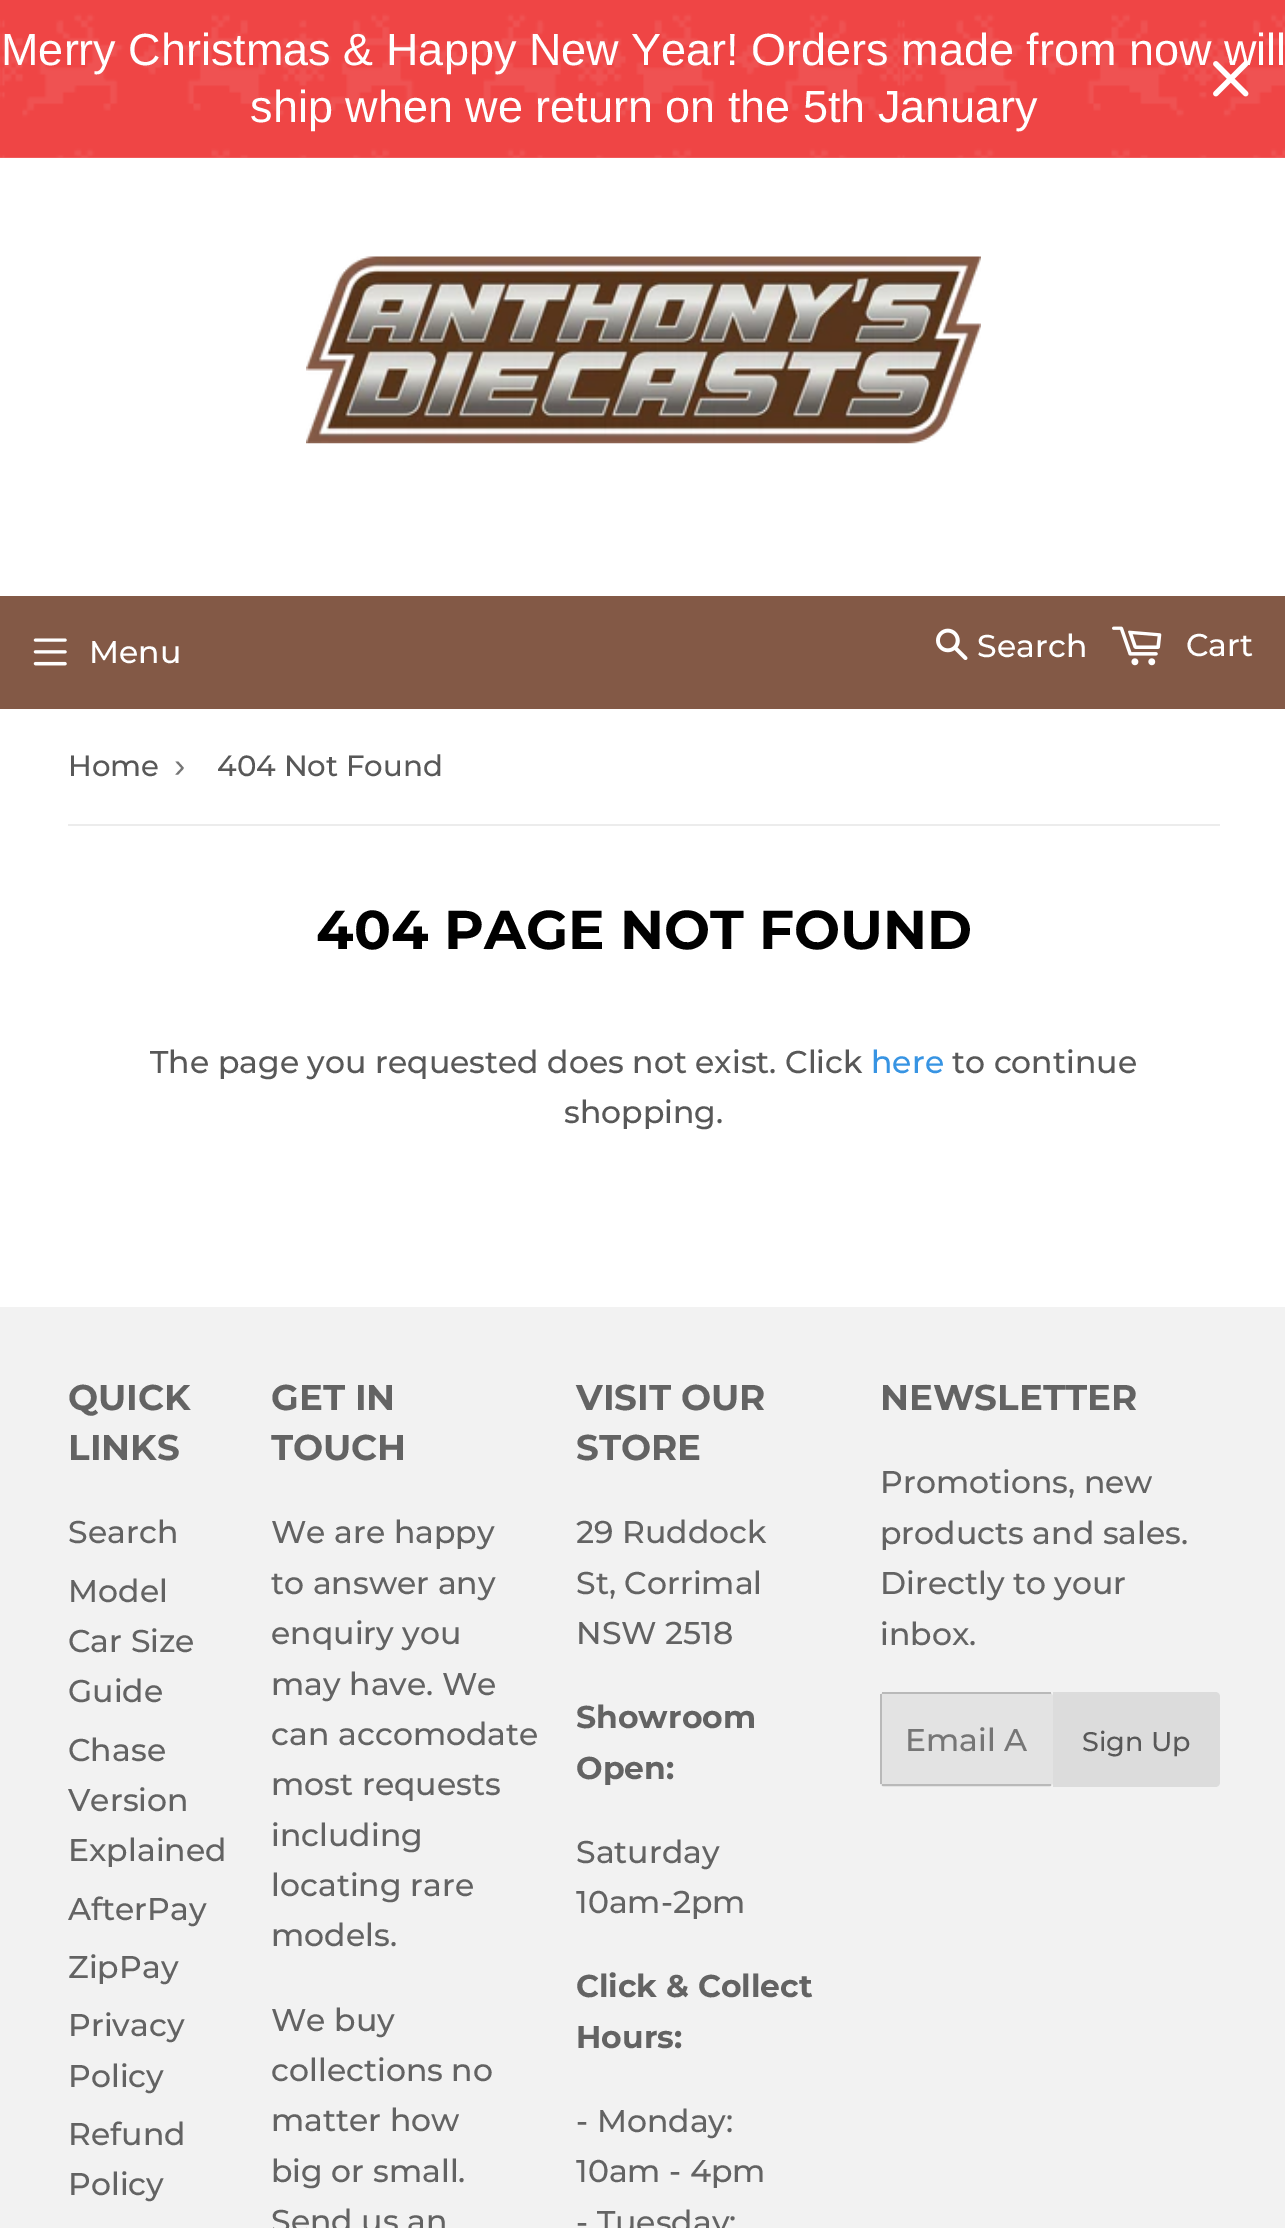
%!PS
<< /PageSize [1285 2228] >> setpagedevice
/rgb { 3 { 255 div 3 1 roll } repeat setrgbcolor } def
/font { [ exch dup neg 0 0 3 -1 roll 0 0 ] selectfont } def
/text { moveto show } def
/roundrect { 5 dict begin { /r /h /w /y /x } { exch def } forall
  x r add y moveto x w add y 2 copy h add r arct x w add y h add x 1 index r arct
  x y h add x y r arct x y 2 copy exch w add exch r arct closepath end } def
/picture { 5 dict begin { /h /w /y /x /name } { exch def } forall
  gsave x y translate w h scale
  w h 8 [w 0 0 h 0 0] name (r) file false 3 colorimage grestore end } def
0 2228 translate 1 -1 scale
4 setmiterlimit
255 255 255 rgb
0 0 1285 2228 rectfill
240 112 112 rgb
0 157 1285 1 rectfill
(img_01.rgb) 0 0 1285 158 picture
(img_03.rgb) 306 256 675 188 picture
131 89 70 rgb
0 596 1285 113 rectfill
(img_04.rgb) 33 638 34 28 picture
(img_05.rgb) 936 628 32 32 picture
(img_06.rgb) 1112 626 50 40 picture
236 236 236 rgb
68 824 1152 2 rectfill
242 242 242 rgb
0 1307 1285 921 rectfill
227 227 227 rgb
880 1692 173 95 5 roundrect fill
185 185 185 rgb
882 1692 169 2 rectfill
882 1784 169 2 rectfill
880 1694 2 90 rectfill
220 220 220 rgb
1053 1692 moveto 162 0 rlineto 3 0 5 2 5 5 rcurveto 0 85 rlineto 0 3 -2 5 -5 5 rcurveto -162 0 rlineto closepath fill
/LiberationSans-Regular 45 font
255 255 255 rgb
(Merry Christmas & Happy New Year! Orders made from now will) 1 65 text
(ship when we return on the 5th January) 250 122 text
(img_02.rgb) 1213 61 36 36 picture
/Montserrat-Medium 31.5 font
(Menu) 89 663 text
(Search) 977 657 text
(Cart) 1186 656 text
/Montserrat-Medium 29.25 font
88 88 88 rgb
(Home) 68 776 text
/LiberationSans-Regular 34 font
118 118 118 rgb
(›) 174 777 text
/Montserrat-Medium 29.25 font
88 88 88 rgb
(404 Not Found) 217 776 text
/Montserrat-Bold 54.6 font
0 0 0 rgb
(404 PAGE NOT FOUND) 316 949 text
/Montserrat-Medium 31.5 font
88 88 88 rgb
(The page you requested does not exist. Click) 150 1073 text
55 148 227 rgb
(here) 871 1073 text
88 88 88 rgb
(to continue) 952 1073 text
(shopping.) 564 1123 text
/Montserrat-Bold 35.75 font
99 99 99 rgb
(QUICK) 68 1410 text
(LINKS) 68 1460 text
/Montserrat-Medium 31.5 font
(Search) 68 1543 text
(Model) 68 1602 text
(Car Size) 68 1652 text
(Guide) 68 1702 text
(Chase) 68 1761 text
(Version) 68 1811 text
(Explained) 68 1861 text
(AfterPay) 68 1920 text
(ZipPay) 68 1978 text
(Privacy) 68 2036 text
(Policy) 68 2087 text
(Refund) 68 2145 text
(Policy) 68 2195 text
/Montserrat-Bold 35.75 font
(GET IN) 271 1410 text
(TOUCH) 271 1460 text
/Montserrat-Medium 31.5 font
(We are happy) 271 1543 text
(to answer any) 271 1594 text
(enquiry you) 271 1644 text
(may have. We) 271 1695 text
(can accomodate) 271 1745 text
(most requests) 271 1795 text
(including) 271 1846 text
(locating rare) 271 1896 text
(models.) 271 1946 text
(We buy) 271 2031 text
(collections no) 271 2081 text
(matter how) 271 2131 text
(big or small.) 271 2182 text
(Send us an) 271 2232 text
/Montserrat-Bold 35.75 font
(VISIT OUR) 576 1410 text
(STORE) 576 1460 text
/Montserrat-Medium 31.5 font
(29 Ruddock) 576 1543 text
(St, Corrimal) 576 1594 text
(NSW 2518) 576 1644 text
/Montserrat-Bold 31.5 font
(Showroom) 576 1728 text
(Open:) 576 1779 text
/Montserrat-Medium 31.5 font
(Saturday) 576 1863 text
(10am-2pm) 576 1913 text
/Montserrat-Bold 31.5 font
(Click & Collect) 576 1997 text
(Hours:) 576 2048 text
/Montserrat-Medium 31.5 font
(- Monday:) 576 2132 text
(10am - 4pm) 576 2182 text
(- Tuesday:) 576 2233 text
/Montserrat-Bold 35.75 font
(NEWSLETTER) 880 1410 text
/Montserrat-Medium 31.5 font
(Promotions, new) 880 1493 text
(products and sales.) 880 1544 text
(Directly to your) 880 1594 text
(inbox.) 880 1645 text
118 118 118 rgb
(Email A) 905 1751 text
/Montserrat-Medium 27 font
88 88 88 rgb
(Sign Up) 1082 1751 text
showpage
